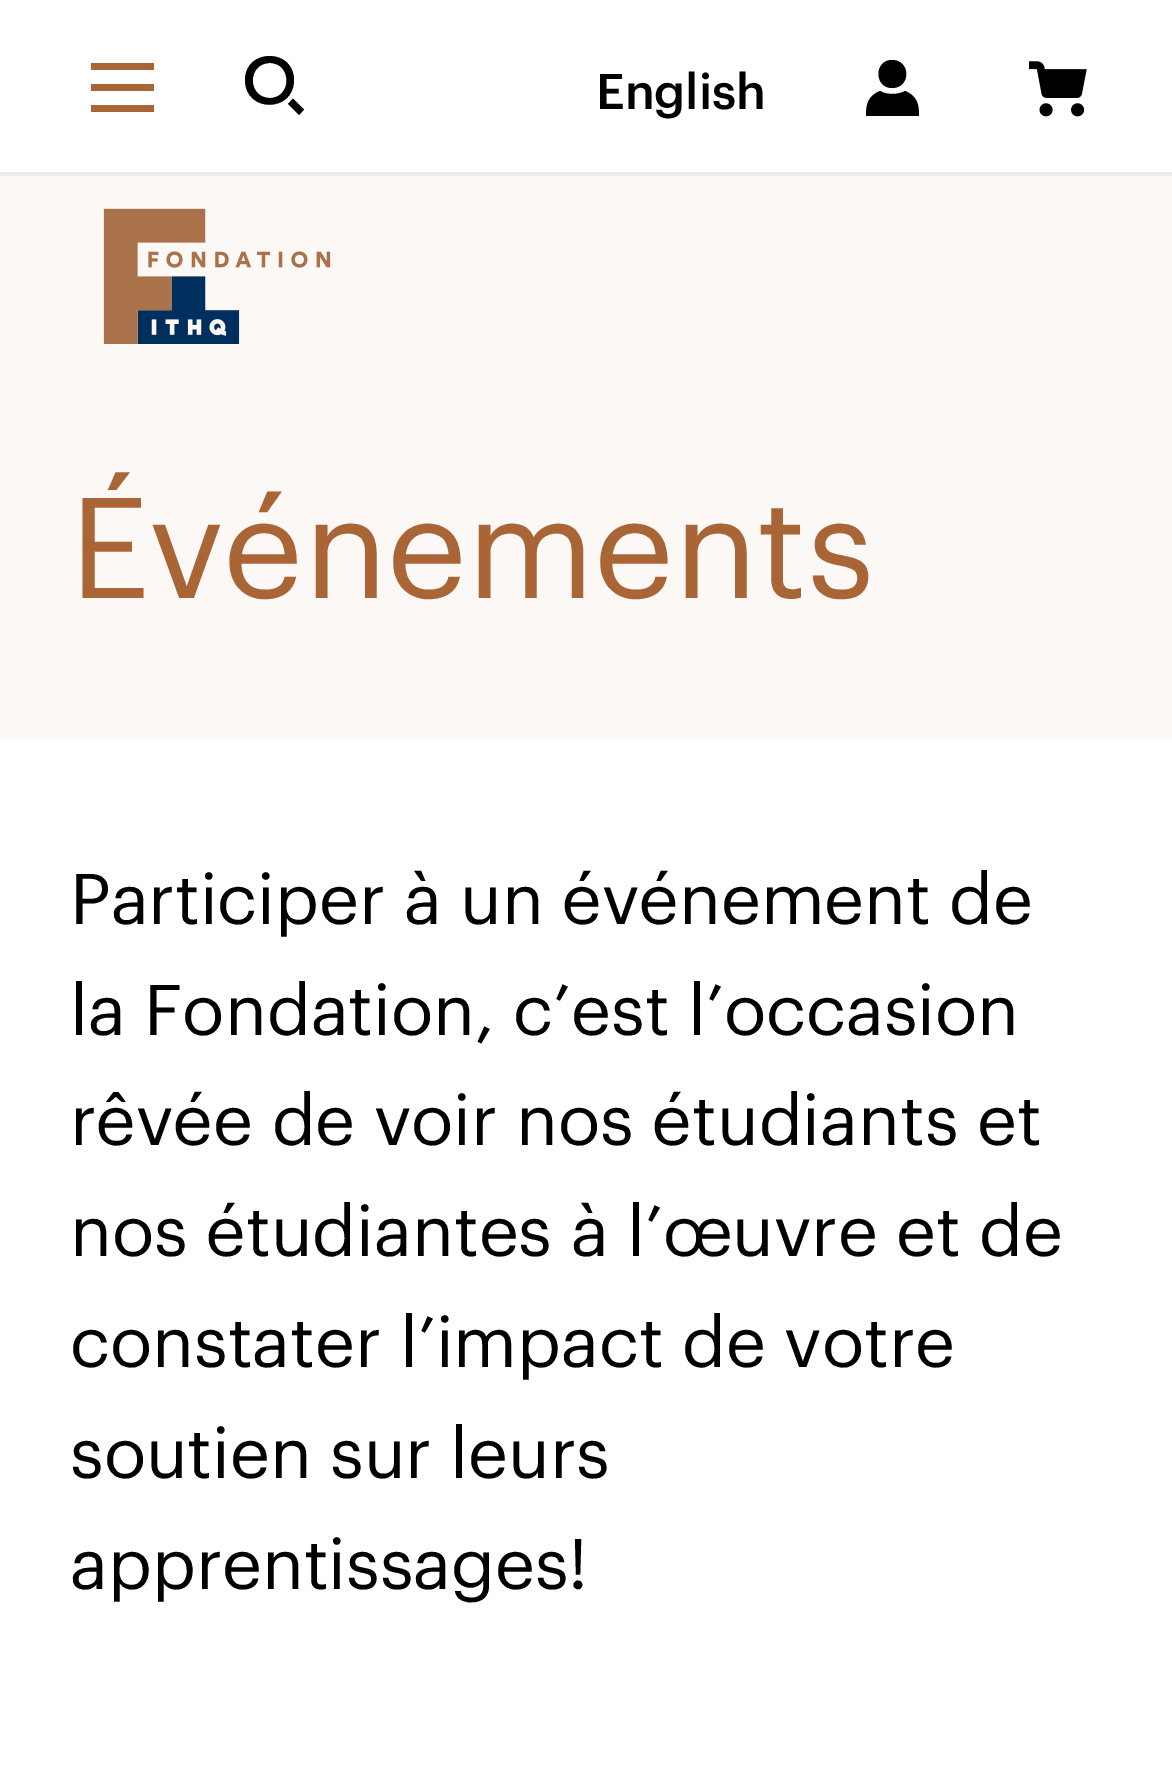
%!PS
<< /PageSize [1172 1776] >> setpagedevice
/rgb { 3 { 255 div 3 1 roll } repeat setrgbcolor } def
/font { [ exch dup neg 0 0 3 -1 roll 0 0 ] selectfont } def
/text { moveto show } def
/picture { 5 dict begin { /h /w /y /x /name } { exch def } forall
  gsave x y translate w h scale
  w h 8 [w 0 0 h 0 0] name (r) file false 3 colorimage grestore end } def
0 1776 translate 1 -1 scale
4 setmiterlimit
255 255 255 rgb
0 0 1172 1776 rectfill
237 237 237 rgb
0 172 1172 4 rectfill
169 101 53 rgb
91 84 63 7 rectfill
91 63 63 7 rectfill
91 105 63 7 rectfill
0 0 0 rgb
245 80 moveto 0 -32 49 -32 49 0 rcurveto 0 33 -49 33 -49 0 rcurveto closepath 270 98 moveto 22 0 22 -35 0 -35 rcurveto -23 0 -23 35 0 35 rcurveto closepath eofill
293 98.5 moveto -5 5.5 rlineto 11 11 rlineto 5 -5.5 rlineto closepath fill
892 88 moveto 19 0 19 -28 0 -28 rcurveto -18 0 -18 28 0 28 rcurveto closepath 905 91 moveto -7 4 -18 4 -25 0 rcurveto -12 5 -14 13 -14 25 rcurveto 53 0 rlineto 0 -12 -2 -20 -14 -25 rcurveto closepath fill
(img_01.rgb) 1029 61 58 56 picture
251 248 246 rgb
0 176 1172 563 rectfill
(img_02.rgb) 103 208 228 137 picture
/Graphik-Medium 49 font
0 0 0 rgb
(English) 596 109 text
/Graphik-Regular 140 font
169 101 53 rgb
(Événements) 70 598 text
/Graphik-Regular 70 font
0 0 0 rgb
(Participer à un événement de) 70 924 text
(la Fondation, c’est l’occasion) 70 1035 text
(rêvée de voir nos étudiants et) 70 1145 text
(nos étudiantes à l’œuvre et de) 70 1256 text
(constater l’impact de votre) 70 1367 text
(soutien sur leurs) 70 1478 text
(apprentissages!) 70 1589 text
showpage
